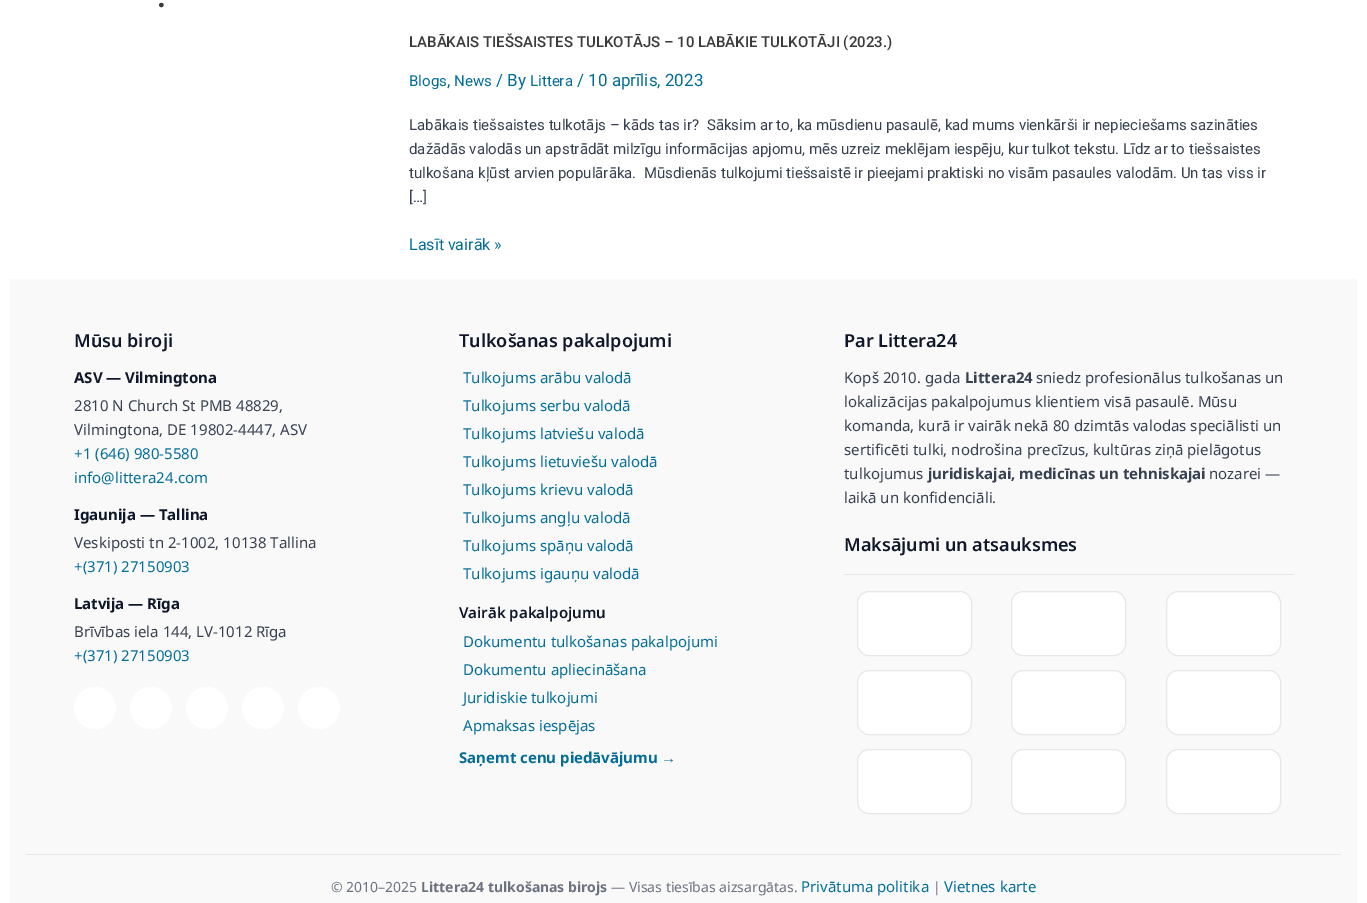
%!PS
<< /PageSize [1367 903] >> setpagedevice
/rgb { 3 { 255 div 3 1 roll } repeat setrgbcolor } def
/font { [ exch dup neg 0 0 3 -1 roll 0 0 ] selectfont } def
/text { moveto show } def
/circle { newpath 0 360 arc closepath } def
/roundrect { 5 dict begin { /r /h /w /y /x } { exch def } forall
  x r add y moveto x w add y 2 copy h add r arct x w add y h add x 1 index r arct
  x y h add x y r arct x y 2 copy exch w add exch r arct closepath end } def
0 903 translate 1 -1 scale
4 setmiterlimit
255 255 255 rgb
0 0 1367 903 rectfill
249 249 249 rgb
10 279 1347 624 rectfill
255 255 255 rgb
95 708 21 circle fill
151 708 21 circle fill
207 708 21 circle fill
263 708 21 circle fill
319 708 21 circle fill
229 231 235 rgb
844 574 450 1 rectfill
255 255 255 rgb
857.5 591.5 114 64 11.5 roundrect gsave fill grestore
229 231 235 rgb
stroke
255 255 255 rgb
1011.5 591.5 114 64 11.5 roundrect gsave fill grestore
229 231 235 rgb
stroke
255 255 255 rgb
1166.5 591.5 114 64 11.5 roundrect gsave fill grestore
229 231 235 rgb
stroke
255 255 255 rgb
857.5 670.5 114 64 11.5 roundrect gsave fill grestore
229 231 235 rgb
stroke
255 255 255 rgb
1011.5 670.5 114 64 11.5 roundrect gsave fill grestore
229 231 235 rgb
stroke
255 255 255 rgb
1166.5 670.5 114 64 11.5 roundrect gsave fill grestore
229 231 235 rgb
stroke
255 255 255 rgb
857.5 749.5 114 64 11.5 roundrect gsave fill grestore
229 231 235 rgb
stroke
255 255 255 rgb
1011.5 749.5 114 64 11.5 roundrect gsave fill grestore
229 231 235 rgb
stroke
255 255 255 rgb
1166.5 749.5 114 64 11.5 roundrect gsave fill grestore
229 231 235 rgb
stroke
26 854 1315 1 rectfill
/Roboto-SemiBold 32 font
58 58 58 rgb
(.) 157 7 text
/Roboto-Medium 15 font
(LABĀKAIS TIEŠSAISTES TULKOTĀJS – 10 LABĀKIE TULKOTĀJI \(2023.\)) 409 47 text
/Roboto-Regular 15 font
4 110 153 rgb
(Blogs) 409 86 text
/Roboto-Regular 17 font
(,) 447 86 text
/Roboto-Regular 15 font
(News) 454 86 text
/Roboto-Regular 17 font
(/ By) 496 86 text
/Roboto-Regular 15 font
(Littera) 530 86 text
/Roboto-Regular 17 font
(/ 10 aprīlis, 2023) 577 86 text
/Roboto-Regular 15 font
55 65 81 rgb
(Labākais tiešsaistes tulkotājs – kāds tas ir?  Sāksim ar to, ka mūsdienu pasaulē, kad mums vienkārši ir nepieciešams sazināties) 409 130 text
(dažādās valodās un apstrādāt milzīgu informācijas apjomu, mēs uzreiz meklējam iespēju, kur tulkot tekstu. Līdz ar to tiešsaistes) 409 154 text
(tulkošana kļūst arvien populārāka.  Mūsdienās tulkojumi tiešsaistē ir pieejami praktiski no visām pasaules valodām. Un tas viss ir) 409 178 text
([…]) 409 202 text
/Roboto-Regular 16 font
4 110 153 rgb
(Lasīt vairāk ») 409 250 text
/NotoSans-SemiBold 18 font
15 23 42 rgb
(Mūsu biroji) 74 347 text
/NotoSans-Bold 15 font
(ASV — Vilmingtona) 74 383 text
/NotoSans-Regular 15 font
55 65 81 rgb
(2810 N Church St PMB 48829,) 74 411 text
(Vilmingtona, DE 19802-4447, ASV) 74 435 text
4 110 153 rgb
(+1 \(646\) 980-5580) 74 459 text
(info@littera24.com) 74 483 text
/NotoSans-Bold 15 font
15 23 42 rgb
(Igaunija — Tallina) 74 520 text
/NotoSans-Regular 15 font
55 65 81 rgb
(Veskiposti tn 2-1002, 10138 Tallina) 74 548 text
4 110 153 rgb
(+\(371\) 27150903) 74 572 text
/NotoSans-Bold 15 font
15 23 42 rgb
(Latvija — Rīga) 74 609 text
/NotoSans-Regular 15 font
55 65 81 rgb
(Brīvības iela 144, LV-1012 Rīga) 74 637 text
4 110 153 rgb
(+\(371\) 27150903) 74 661 text
/NotoSans-SemiBold 18 font
15 23 42 rgb
(Tulkošanas pakalpojumi) 459 347 text
/NotoSans-Regular 15 font
4 110 153 rgb
(Tulkojums arābu valodā) 463 383 text
(Tulkojums serbu valodā) 463 411 text
(Tulkojums latviešu valodā) 463 439 text
(Tulkojums lietuviešu valodā) 463 467 text
(Tulkojums krievu valodā) 463 495 text
(Tulkojums angļu valodā) 463 523 text
(Tulkojums spāņu valodā) 463 551 text
(Tulkojums igauņu valodā) 463 579 text
/NotoSans-SemiBold 15 font
15 23 42 rgb
(Vairāk pakalpojumu) 459 618 text
/NotoSans-Regular 15 font
4 110 153 rgb
(Dokumentu tulkošanas pakalpojumi) 463 647 text
(Dokumentu apliecināšana) 463 675 text
(Juridiskie tulkojumi) 463 703 text
(Apmaksas iespējas) 463 731 text
/NotoSans-Bold 15 font
(Saņemt cenu piedāvājumu) 459 763 text
/LiberationSans-Bold 15 font
(→) 661 763 text
/NotoSans-SemiBold 18 font
15 23 42 rgb
(Par Littera24) 844 347 text
/NotoSans-Regular 15 font
55 65 81 rgb
(Kopš 2010. gada) 844 383 text
/NotoSans-Bold 15 font
(Littera24) 965 383 text
/NotoSans-Regular 15 font
(sniedz profesionālus tulkošanas un) 1036 383 text
(lokalizācijas pakalpojumus klientiem visā pasaulē. Mūsu) 844 407 text
(komanda, kurā ir vairāk nekā 80 dzimtās valodas speciālisti un) 844 431 text
(sertificēti tulki, nodrošina precīzus, kultūras ziņā pielāgotus) 844 455 text
(tulkojumus) 844 479 text
/NotoSans-Bold 15 font
(juridiskajai, medicīnas un tehniskajai) 928 479 text
/NotoSans-Regular 15 font
(nozarei —) 1209 479 text
(laikā un konfidenciāli.) 844 503 text
/NotoSans-SemiBold 18 font
15 23 42 rgb
(Maksājumi un atsauksmes) 844 551 text
/NotoSans-Regular 14 font
107 114 128 rgb
(© 2010–2025) 331 892 text
/NotoSans-Bold 14 font
(Littera24 tulkošanas birojs) 421 892 text
/NotoSans-Regular 14 font
(— Visas tiesības aizsargātas.) 611 892 text
/NotoSans-Regular 15 font
4 110 153 rgb
(Privātuma politika) 801 892 text
/NotoSans-Regular 14 font
107 114 128 rgb
(|) 933 892 text
/NotoSans-Regular 15 font
4 110 153 rgb
(Vietnes karte) 944 892 text
showpage
